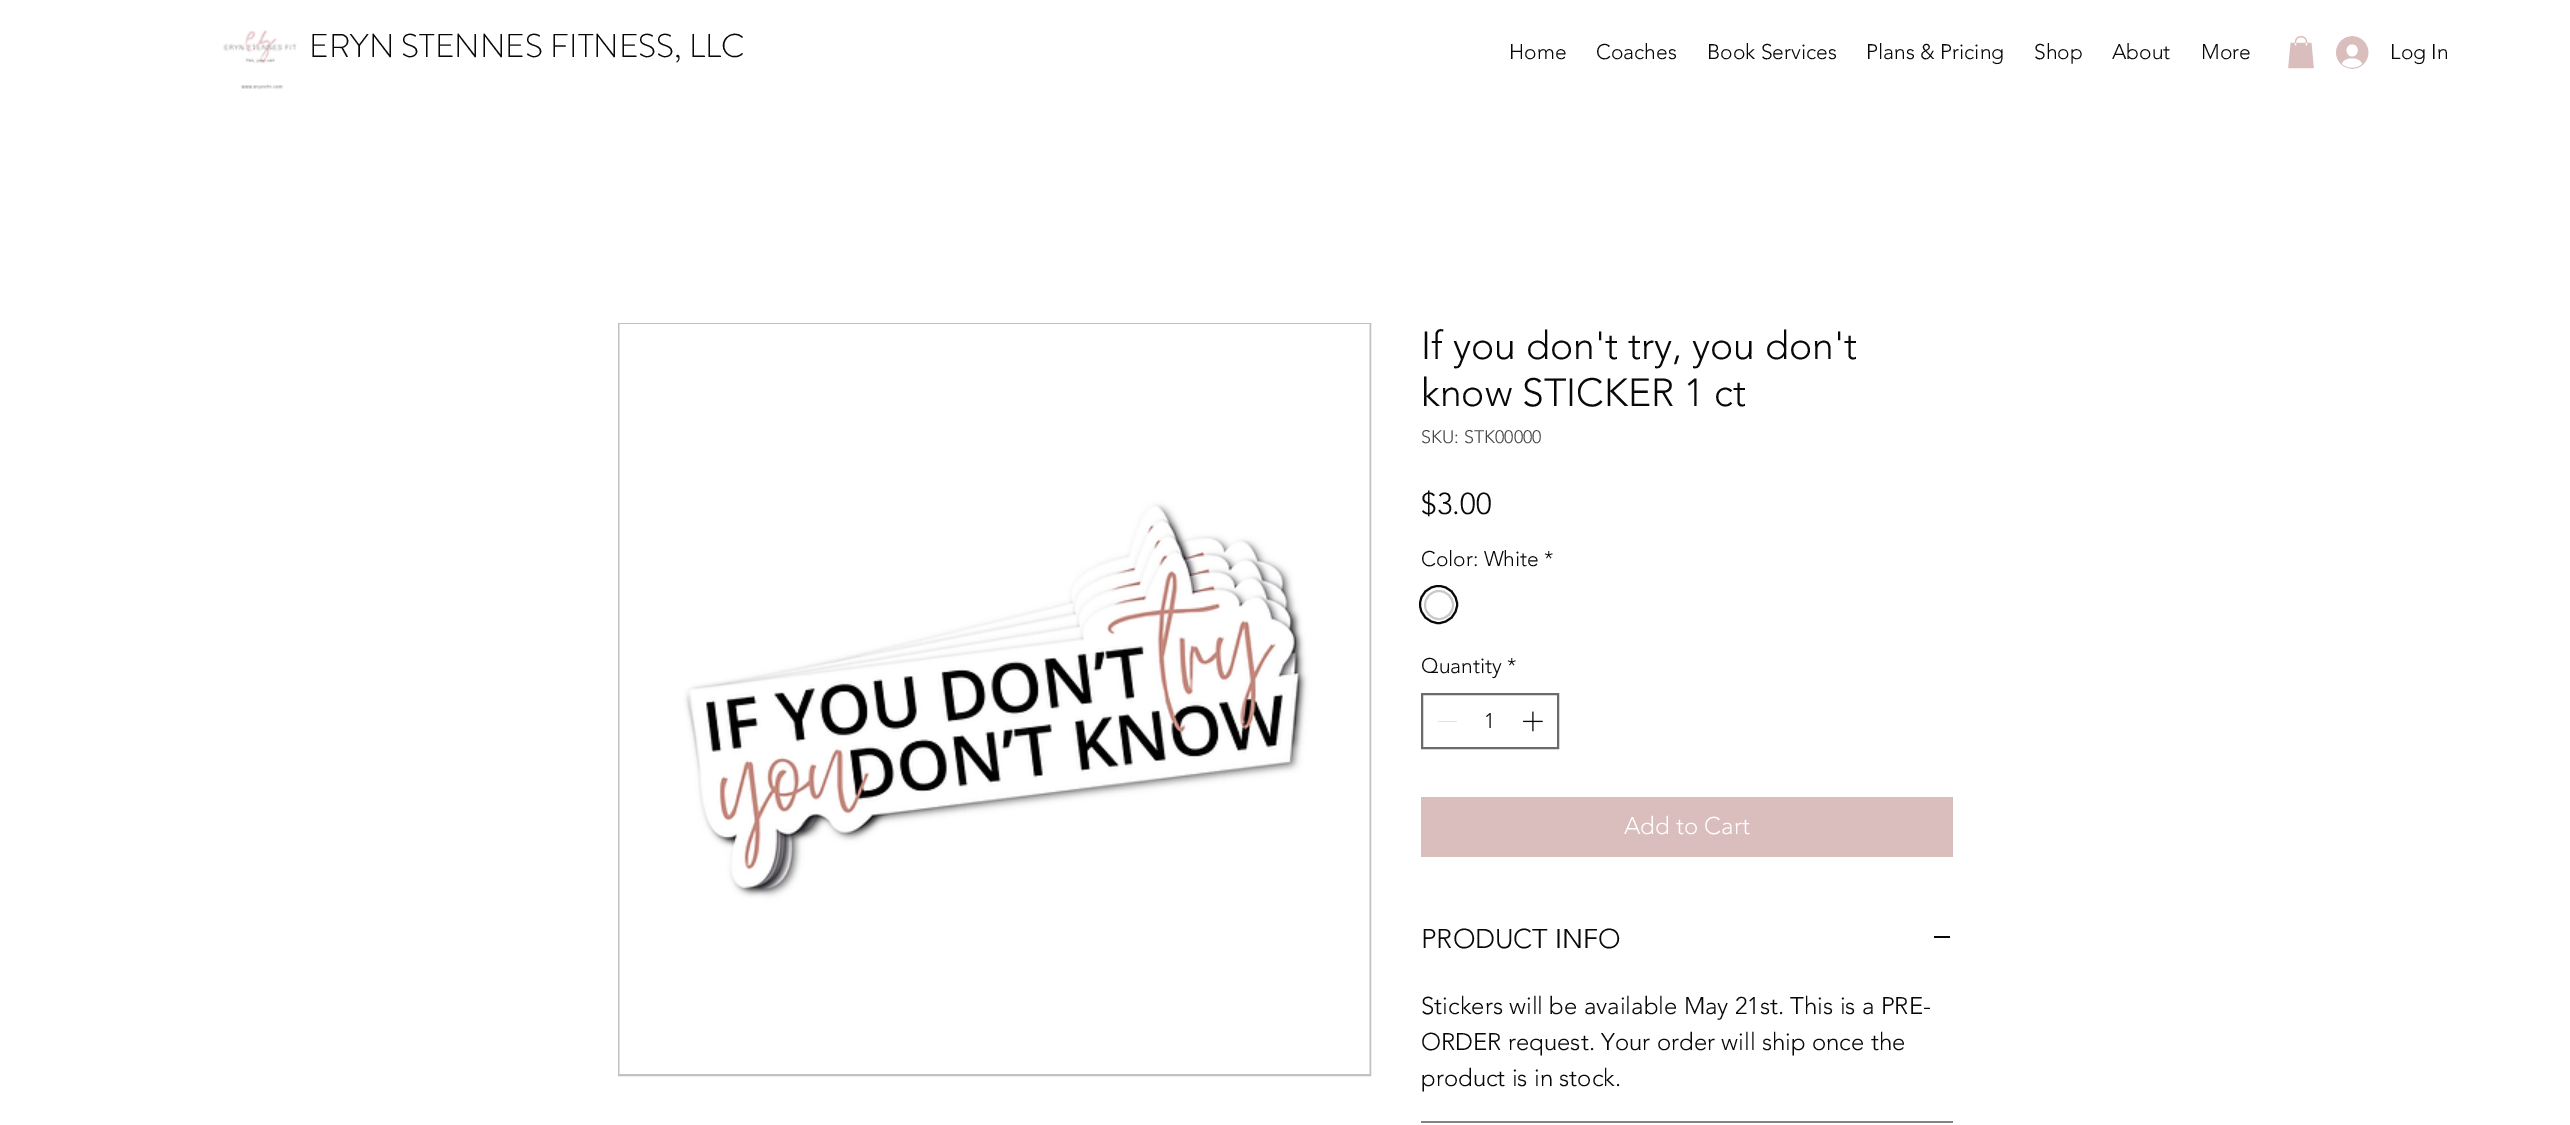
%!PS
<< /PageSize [2570 1125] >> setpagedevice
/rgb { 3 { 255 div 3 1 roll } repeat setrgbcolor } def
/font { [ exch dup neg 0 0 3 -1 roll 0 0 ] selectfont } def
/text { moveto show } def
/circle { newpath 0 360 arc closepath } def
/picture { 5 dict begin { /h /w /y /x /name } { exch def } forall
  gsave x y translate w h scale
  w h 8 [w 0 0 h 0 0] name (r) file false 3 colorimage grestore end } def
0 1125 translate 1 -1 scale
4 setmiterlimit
255 255 255 rgb
0 0 2570 1125 rectfill
(img_01.rgb) 223 30 74 60 picture
(img_02.rgb) 2288 36 26 33 picture
(img_03.rgb) 2336 36 33 33 picture
193 193 193 rgb
2 setlinewidth
619 324 751 751 rectstroke
(img_04.rgb) 619 324 751 750 picture
8 8 8 rgb
1438.5 604.5 18.5 circle stroke
201 201 201 rgb
1439 605 14 circle stroke
107 107 107 rgb
1422 694 136 54 rectstroke
227 227 227 rgb
1438 721 19 1 rectfill
(img_05.rgb) 1523 711 20 21 picture
218 190 190 rgb
1421 797 532 60 rectfill
132 132 132 rgb
1421 1121 532 2 rectfill
8 8 8 rgb
1934 936 16 2 rectfill
/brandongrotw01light-Light 33 font
(ERYN STENNES FITNESS, LLC) 309 57 text
/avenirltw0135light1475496-Light 21 font
(Home) 1509 59 text
(Coaches) 1596 59 text
(Book Services) 1707 59 text
(Plans & Pricing) 1866 59 text
(Shop) 2034 59 text
(About) 2112 59 text
(More) 2201 59 text
(Log In) 2390 59 text
/avenirltw0135light1475496-Light 39 font
(If you don't try, you don't) 1421 359 text
(know STICKER 1 ct) 1421 406 text
/avenirltw0135light1475496-Light 18 font
70 70 70 rgb
(SKU: STK00000) 1421 443 text
/avenirltw0135light1475496-Light 30 font
8 8 8 rgb
($3.00) 1421 514 text
/avenirltw0135light1475496-Light 21 font
(Color: White) 1421 566 text
(*) 1544 566 text
(Quantity) 1421 673 text
(*) 1507 673 text
(1) 1484 728 text
/avenirltw0135light1475496-Light 24 font
255 255 255 rgb
(Add to Cart) 1624 834 text
/avenirltw0135light1475496-Light 27 font
8 8 8 rgb
(PRODUCT INFO) 1421 948 text
/avenirltw0135light1475496-Light 24 font
(Stickers will be available May 21st. This is a PRE-) 1421 1014 text
(ORDER request. Your order will ship once the) 1421 1050 text
(product is in stock.) 1421 1086 text
showpage
